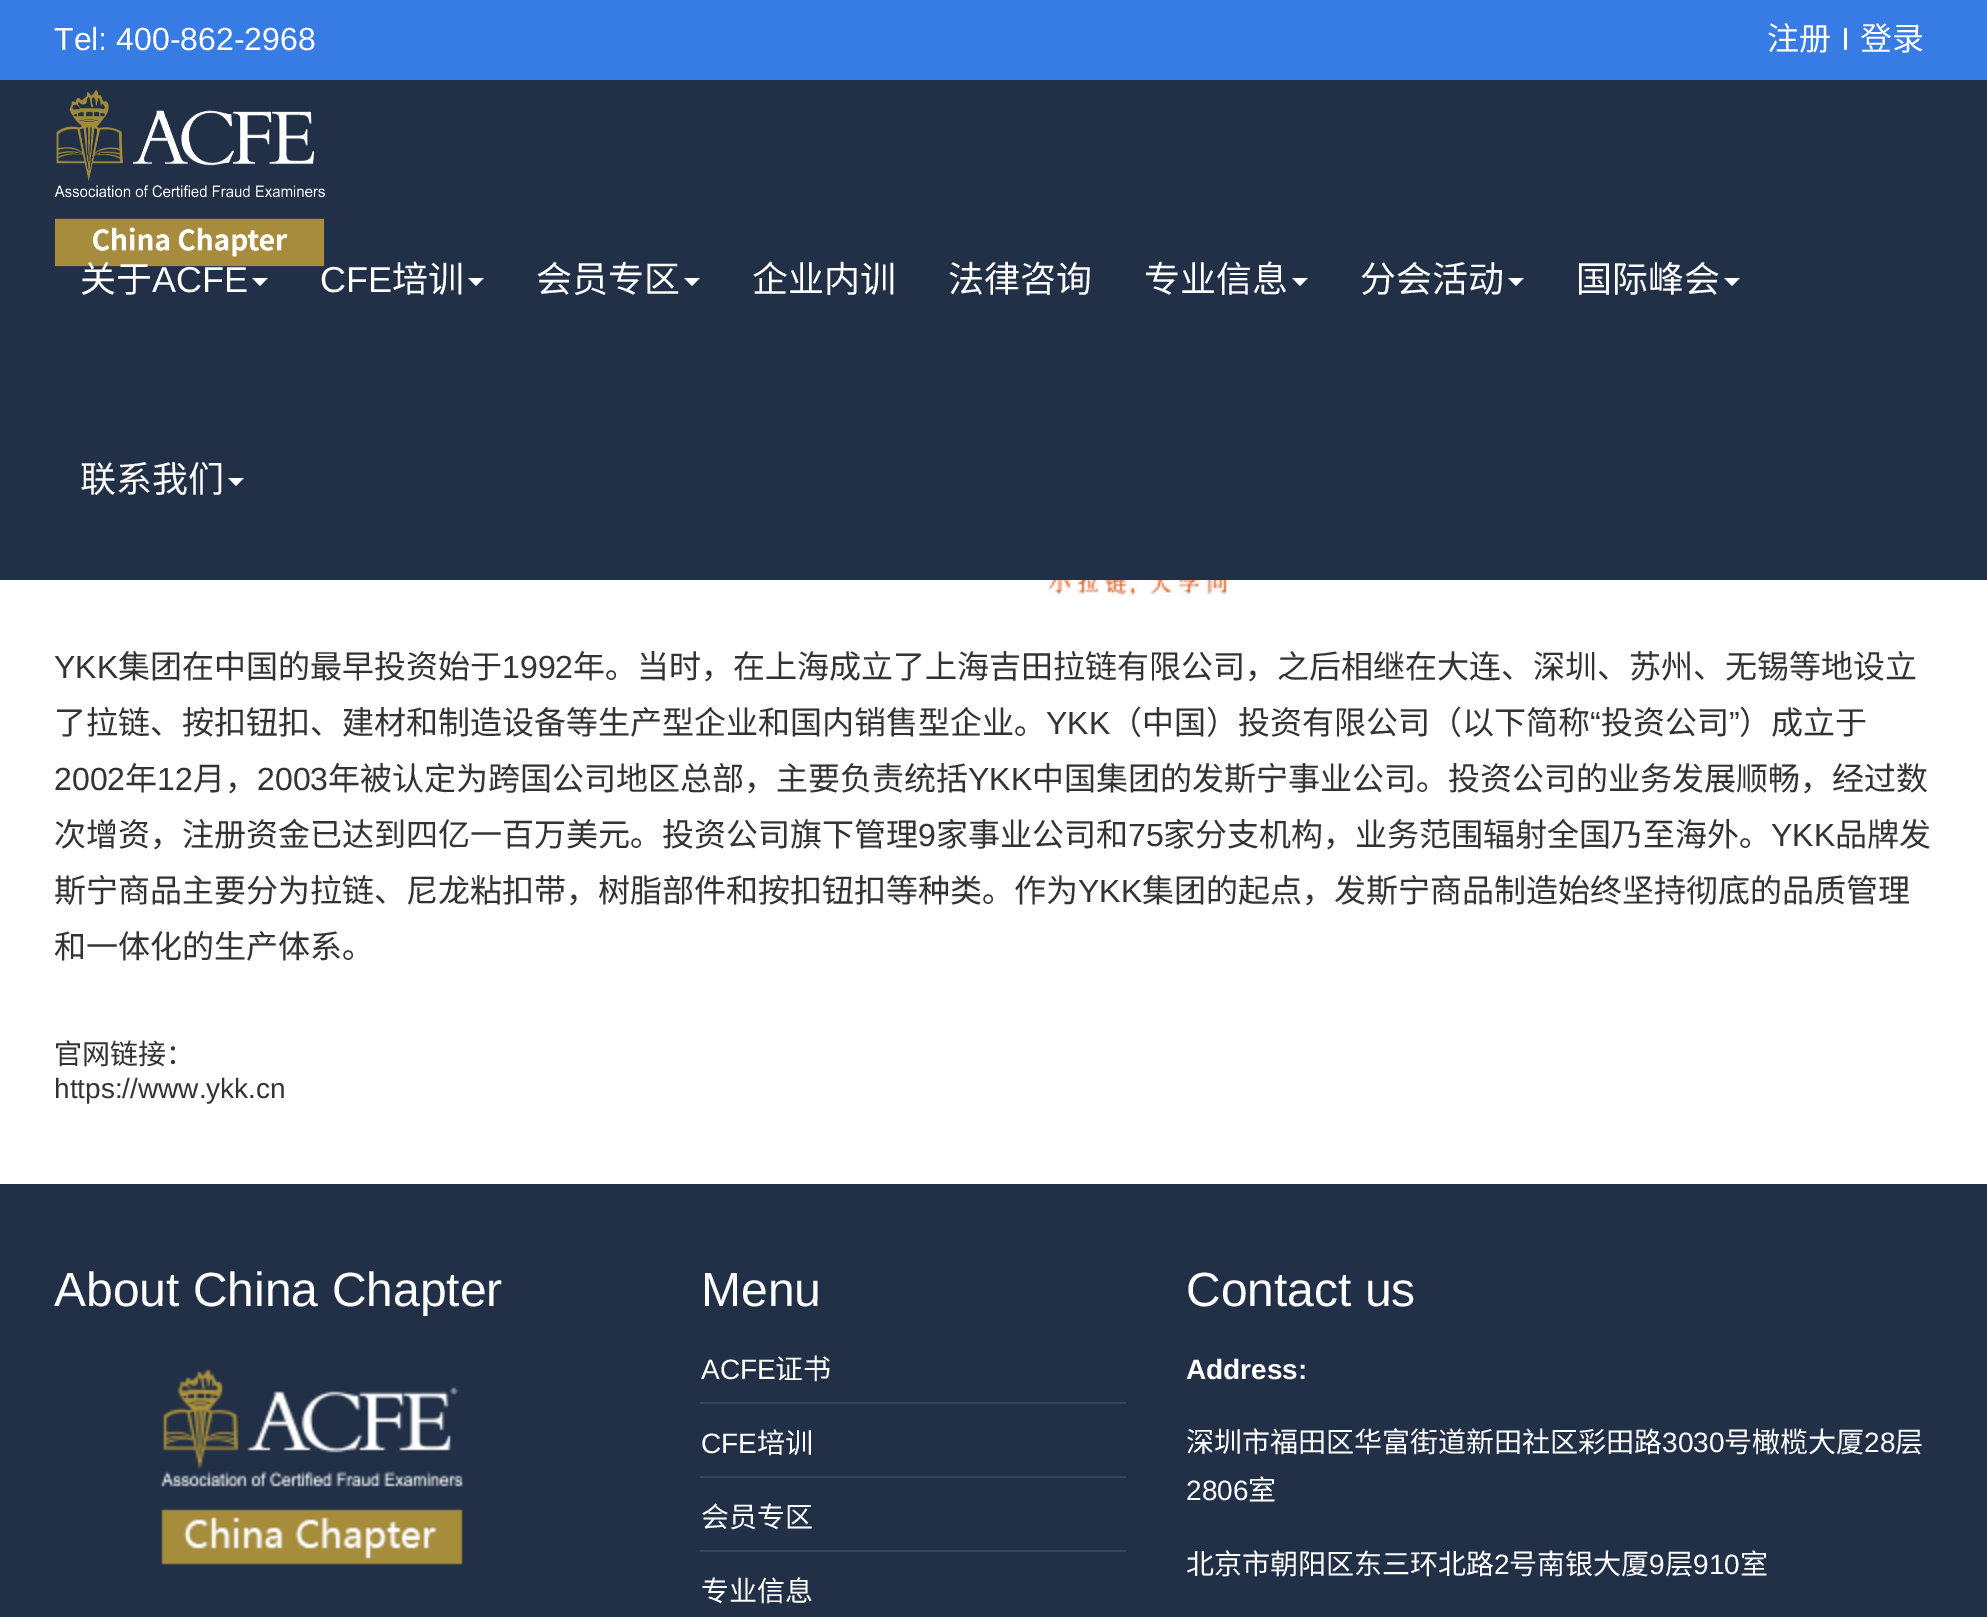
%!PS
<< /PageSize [1987 1617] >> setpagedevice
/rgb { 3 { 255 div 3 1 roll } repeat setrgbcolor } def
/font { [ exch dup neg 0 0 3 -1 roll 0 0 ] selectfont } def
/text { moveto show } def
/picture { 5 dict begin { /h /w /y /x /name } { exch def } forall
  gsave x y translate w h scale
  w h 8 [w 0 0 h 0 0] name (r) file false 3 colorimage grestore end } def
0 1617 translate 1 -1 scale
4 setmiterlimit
255 255 255 rgb
0 0 1987 1617 rectfill
55 124 229 rgb
0 0 1987 80 rectfill
33 48 71 rgb
0 80 1987 500 rectfill
(img_01.rgb) 54 90 271 177 picture
255 255 255 rgb
252 278 moveto 16 0 rlineto -8 8 rlineto closepath fill
468 278 moveto 16 0 rlineto -8 8 rlineto closepath fill
684 278 moveto 16 0 rlineto -8 8 rlineto closepath fill
1292 278 moveto 16 0 rlineto -8 8 rlineto closepath fill
1508 278 moveto 16 0 rlineto -8 8 rlineto closepath fill
1724 278 moveto 16 0 rlineto -8 8 rlineto closepath fill
228 478 moveto 16 0 rlineto -8 8 rlineto closepath fill
(img_02.rgb) 757 580 472 17 picture
33 48 71 rgb
0 1184 1987 433 rectfill
(img_03.rgb) 161 1369 302 196 picture
55 69 89 rgb
700 1402 426 2 rectfill
700 1476 426 2 rectfill
700 1550 426 2 rectfill
/LiberationSans-Regular 32 font
255 255 255 rgb
(Tel: 400-862-2968) 54 50 text
/NotoSansCJKSC-Regular 32 font
(注册) 1767 50 text
/LiberationSans-Regular 32 font
(I) 1841 50 text
/NotoSansCJKSC-Regular 32 font
(登录) 1860 50 text
/NotoSansCJKSC-Regular 36 font
(关于) 80 292 text
/LiberationSans-Regular 36 font
(ACFE) 152 292 text
(CFE) 320 292 text
/NotoSansCJKSC-Regular 36 font
(培训) 392 292 text
(会员专区) 536 292 text
(企业内训) 752 292 text
(法律咨询) 948 292 text
(专业信息) 1144 292 text
(分会活动) 1360 292 text
(国际峰会) 1576 292 text
(联系我们) 80 492 text
/LiberationSans-Regular 32 font
51 51 51 rgb
(YKK) 54 678 text
/NotoSansCJKSC-Regular 32 font
(集团在中国的最早投资始于) 118 678 text
/LiberationSans-Regular 32 font
(1992) 502 678 text
/NotoSansCJKSC-Regular 32 font
(年。当时，在上海成立了上海吉田拉链有限公司，之后相继在大连、深圳、苏州、无锡等地设立) 573 678 text
(了拉链、按扣钮扣、建材和制造设备等生产型企业和国内销售型企业。) 54 734 text
/LiberationSans-Regular 32 font
(YKK) 1046 734 text
/NotoSansCJKSC-Regular 32 font
(（中国）投资有限公司（以下简称) 1110 734 text
/LiberationSans-Regular 32 font
(“) 1590 734 text
/NotoSansCJKSC-Regular 32 font
(投资公司) 1601 734 text
/LiberationSans-Regular 32 font
(”) 1729 734 text
/NotoSansCJKSC-Regular 32 font
(）成立于) 1739 734 text
/LiberationSans-Regular 32 font
(2002) 54 790 text
/NotoSansCJKSC-Regular 32 font
(年) 125 790 text
/LiberationSans-Regular 32 font
(12) 157 790 text
/NotoSansCJKSC-Regular 32 font
(月，) 193 790 text
/LiberationSans-Regular 32 font
(2003) 257 790 text
/NotoSansCJKSC-Regular 32 font
(年被认定为跨国公司地区总部，主要负责统括) 328 790 text
/LiberationSans-Regular 32 font
(YKK) 968 790 text
/NotoSansCJKSC-Regular 32 font
(中国集团的发斯宁事业公司。投资公司的业务发展顺畅，经过数) 1032 790 text
(次增资，注册资金已达到四亿一百万美元。投资公司旗下管理) 54 846 text
/LiberationSans-Regular 32 font
(9) 918 846 text
/NotoSansCJKSC-Regular 32 font
(家事业公司和) 936 846 text
/LiberationSans-Regular 32 font
(75) 1128 846 text
/NotoSansCJKSC-Regular 32 font
(家分支机构，业务范围辐射全国乃至海外。) 1163 846 text
/LiberationSans-Regular 32 font
(YKK) 1771 846 text
/NotoSansCJKSC-Regular 32 font
(品牌发) 1835 846 text
(斯宁商品主要分为拉链、尼龙粘扣带，树脂部件和按扣钮扣等种类。作为) 54 902 text
/LiberationSans-Regular 32 font
(YKK) 1078 902 text
/NotoSansCJKSC-Regular 32 font
(集团的起点，发斯宁商品制造始终坚持彻底的品质管理) 1142 902 text
(和一体化的生产体系。) 54 958 text
/NotoSansCJKSC-Regular 28 font
(官网链接：) 54 1064 text
/LiberationSans-Regular 28 font
(https://www.ykk.cn) 54 1098 text
/LiberationSans-Regular 48 font
255 255 255 rgb
(About China Chapter) 54 1306 text
(Menu) 701 1306 text
/LiberationSans-Regular 28 font
(ACFE) 701 1379 text
/NotoSansCJKSC-Regular 28 font
(证书) 775 1379 text
/LiberationSans-Regular 28 font
(CFE) 701 1453 text
/NotoSansCJKSC-Regular 28 font
(培训) 757 1453 text
(会员专区) 701 1527 text
(专业信息) 701 1601 text
/LiberationSans-Regular 48 font
(Contact us) 1186 1306 text
/LiberationSans-Bold 28 font
(Address:) 1186 1379 text
/NotoSansCJKSC-Regular 28 font
(深圳市福田区华富街道新田社区彩田路) 1186 1452 text
/LiberationSans-Regular 28 font
(3030) 1662 1452 text
/NotoSansCJKSC-Regular 28 font
(号橄榄大厦) 1724 1452 text
/LiberationSans-Regular 28 font
(28) 1864 1452 text
/NotoSansCJKSC-Regular 28 font
(层) 1895 1452 text
/LiberationSans-Regular 28 font
(2806) 1186 1500 text
/NotoSansCJKSC-Regular 28 font
(室) 1248 1500 text
(北京市朝阳区东三环北路) 1186 1574 text
/LiberationSans-Regular 28 font
(2) 1494 1574 text
/NotoSansCJKSC-Regular 28 font
(号南银大厦) 1509 1574 text
/LiberationSans-Regular 28 font
(9) 1649 1574 text
/NotoSansCJKSC-Regular 28 font
(层) 1665 1574 text
/LiberationSans-Regular 28 font
(910) 1693 1574 text
/NotoSansCJKSC-Regular 28 font
(室) 1740 1574 text
showpage
